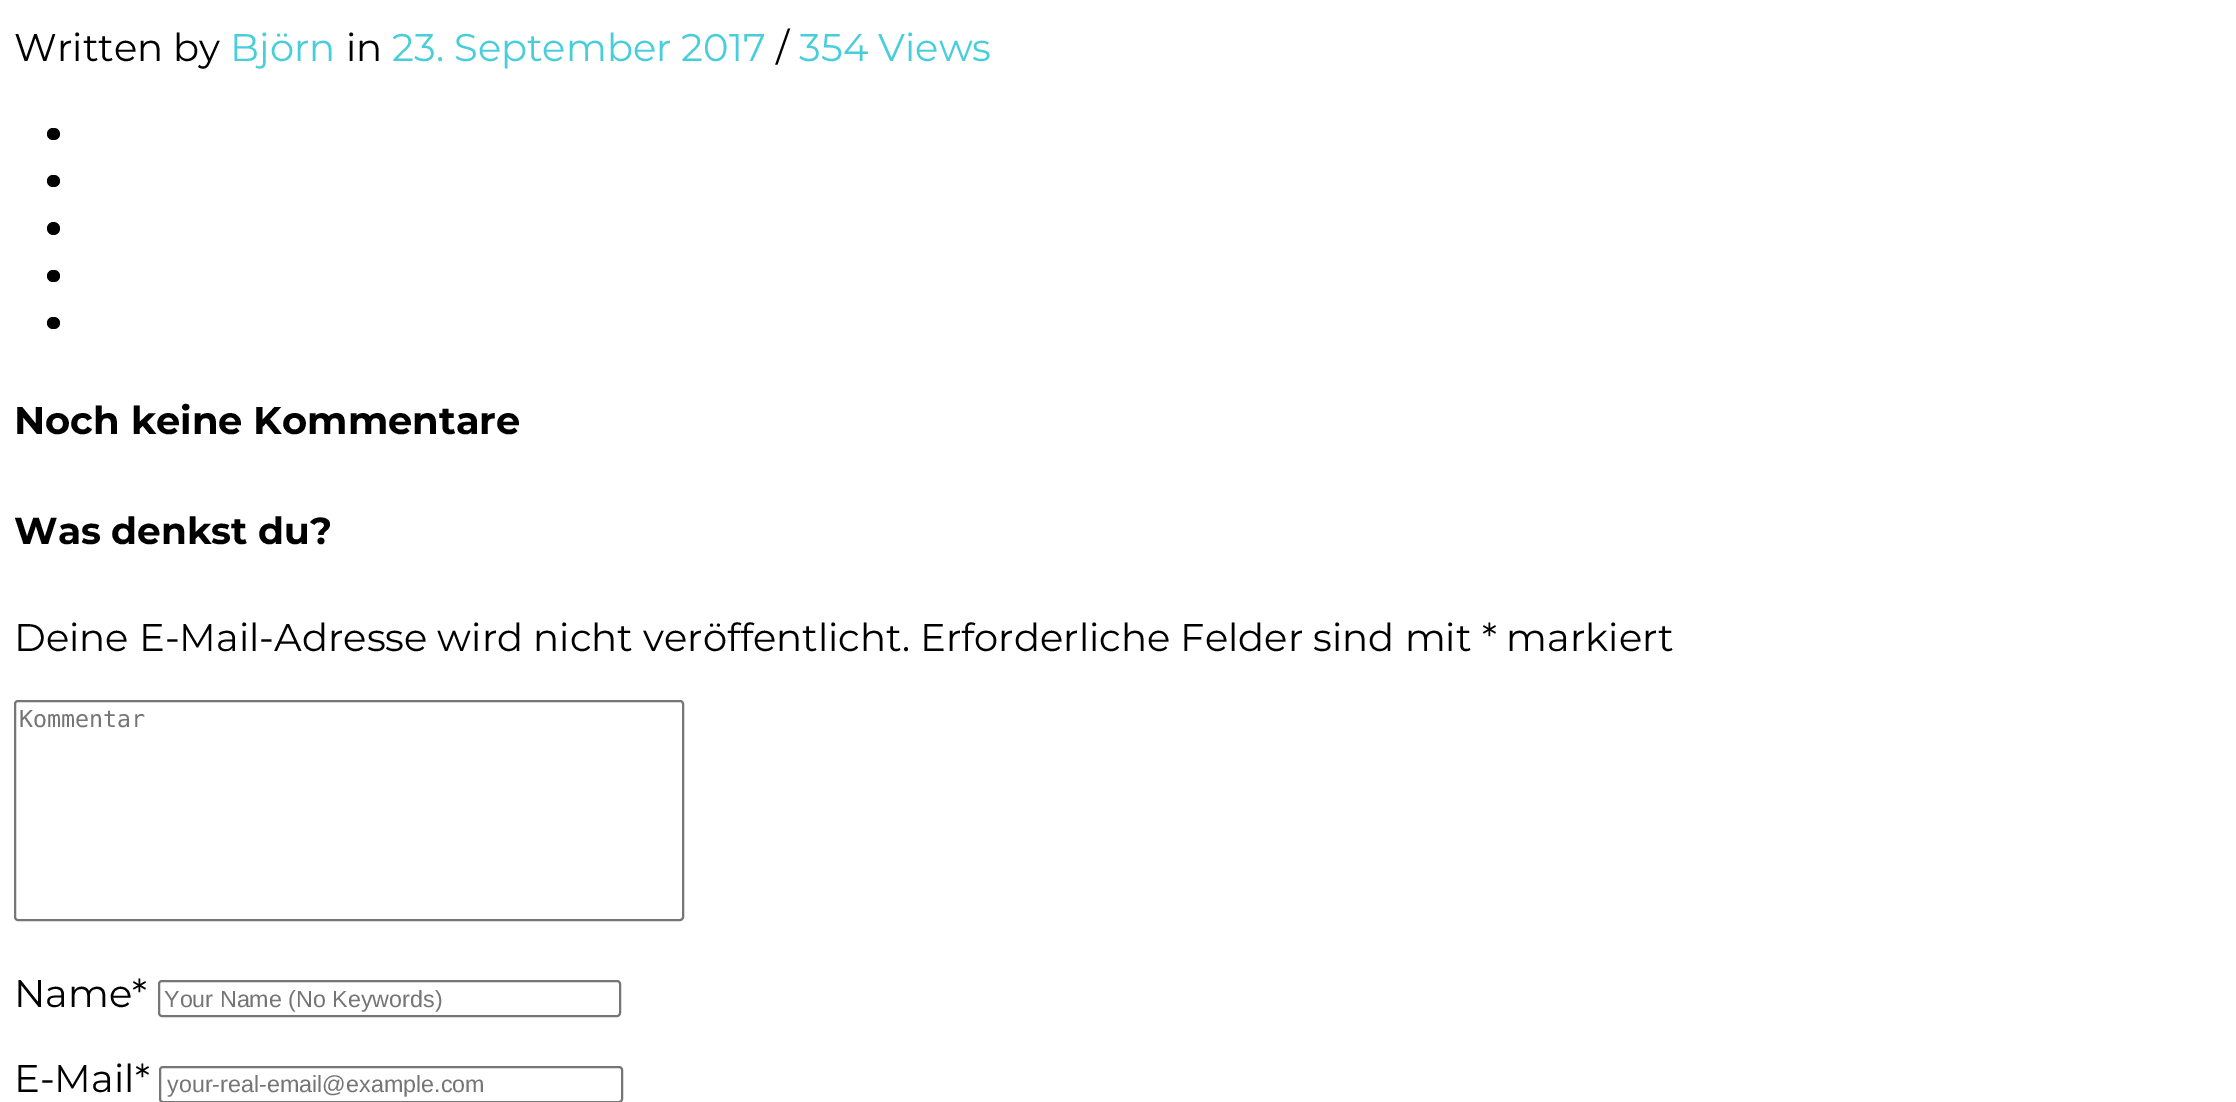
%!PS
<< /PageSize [2236 1102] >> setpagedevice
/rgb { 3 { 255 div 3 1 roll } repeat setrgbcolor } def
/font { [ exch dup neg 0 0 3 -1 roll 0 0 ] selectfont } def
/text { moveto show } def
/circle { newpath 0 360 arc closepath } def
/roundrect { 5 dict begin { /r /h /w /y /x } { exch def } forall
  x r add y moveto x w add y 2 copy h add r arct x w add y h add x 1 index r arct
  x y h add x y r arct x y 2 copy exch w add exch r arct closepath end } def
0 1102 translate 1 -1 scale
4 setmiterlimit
255 255 255 rgb
0 0 2236 1102 rectfill
0 0 0 rgb
47 128 13 12 6 roundrect fill
47 175 13 12 6 roundrect fill
53.5 228.5 6.5 circle fill
47 270 13 12 6 roundrect fill
47 317 13 12 6 roundrect fill
118 118 118 rgb
2 setlinewidth
15 701 668 219 3 roundrect stroke
159 981 461 35 3 roundrect stroke
160 1067 462 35 3 roundrect stroke
/Montserrat-Regular 38.5 font
0 0 0 rgb
(Written by) 14 61 text
72 206 219 rgb
(Björn) 230 61 text
0 0 0 rgb
(in) 346 61 text
72 206 219 rgb
(23. September 2017) 392 61 text
0 0 0 rgb
(/) 776 61 text
72 206 219 rgb
(354 Views) 799 61 text
/Montserrat-Bold 38.5 font
0 0 0 rgb
(Noch keine Kommentare) 14 434 text
/Montserrat-Bold 37.5 font
(Was denkst du?) 14 544 text
/Montserrat-Regular 38.5 font
(Deine E-Mail-Adresse wird nicht veröffentlicht. Erforderliche Felder sind mit * markiert) 14 651 text
/DejaVuSansMono-Regular 23.3 font
117 117 117 rgb
(Kommentar) 19 727 text
/Montserrat-Regular 38.5 font
0 0 0 rgb
(Name*) 14 1007 text
/LiberationSans-Regular 23.3 font
117 117 117 rgb
(Your Name \(No Keywords\)) 164 1007 text
/Montserrat-Regular 38.5 font
0 0 0 rgb
(E-Mail*) 14 1092 text
/LiberationSans-Regular 23.3 font
117 117 117 rgb
(your-real-email@example.com) 167 1092 text
showpage
